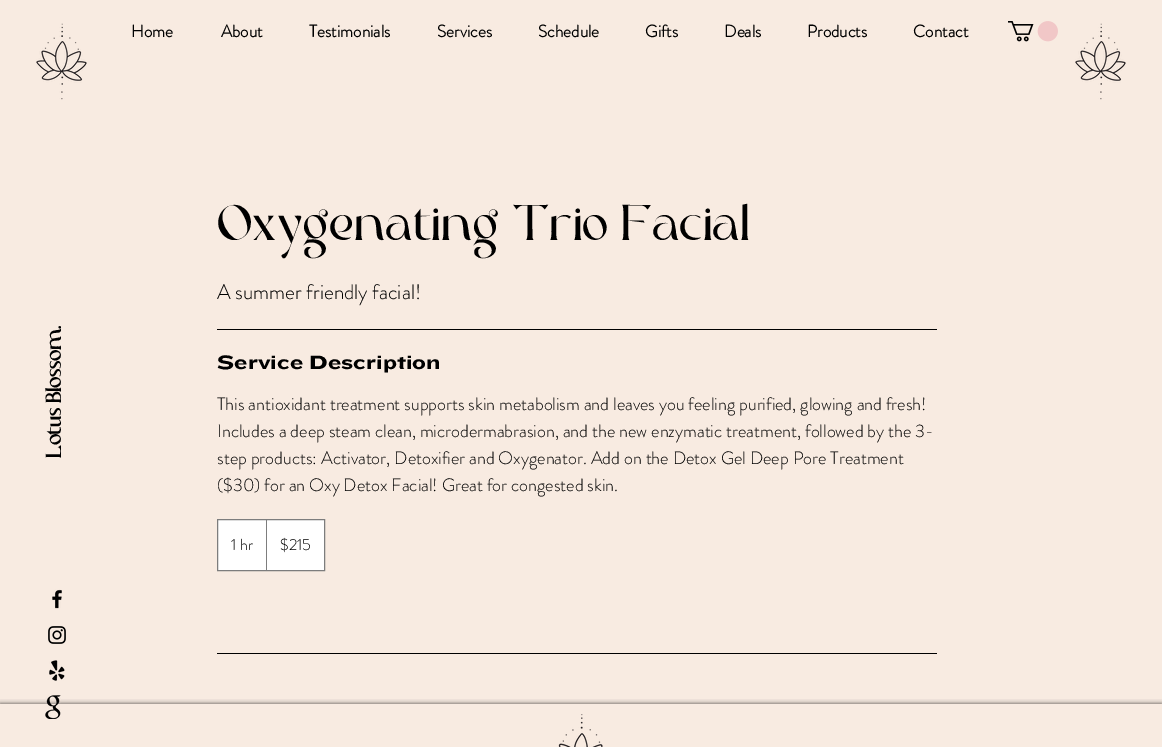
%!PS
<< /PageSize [1162 747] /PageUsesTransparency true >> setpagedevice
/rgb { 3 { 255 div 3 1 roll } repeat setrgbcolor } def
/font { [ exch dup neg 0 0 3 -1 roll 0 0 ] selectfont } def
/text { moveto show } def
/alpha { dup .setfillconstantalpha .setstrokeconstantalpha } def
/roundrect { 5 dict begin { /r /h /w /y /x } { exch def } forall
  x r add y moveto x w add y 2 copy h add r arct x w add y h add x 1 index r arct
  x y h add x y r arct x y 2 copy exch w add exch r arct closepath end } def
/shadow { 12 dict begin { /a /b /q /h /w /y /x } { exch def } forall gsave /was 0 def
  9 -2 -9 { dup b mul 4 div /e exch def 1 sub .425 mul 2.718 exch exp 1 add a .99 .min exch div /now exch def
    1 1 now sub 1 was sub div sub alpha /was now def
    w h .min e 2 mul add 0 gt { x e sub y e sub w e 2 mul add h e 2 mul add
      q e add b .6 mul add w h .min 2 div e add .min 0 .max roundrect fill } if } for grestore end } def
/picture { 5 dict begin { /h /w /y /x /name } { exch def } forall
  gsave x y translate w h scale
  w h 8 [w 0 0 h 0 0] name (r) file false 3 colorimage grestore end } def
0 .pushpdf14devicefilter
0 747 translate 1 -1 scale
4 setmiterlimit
248 235 225 rgb
0 0 1162 747 rectfill
(img_01.rgb) 36 23 51 77 picture
(img_02.rgb) 1008 21 50 21 picture
(img_01.rgb) 1075 23 51 77 picture
(img_03.rgb) 52 589 10 20 picture
(img_04.rgb) 48 626 18 18 picture
(img_05.rgb) 49 660 16 21 picture
gsave
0 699 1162 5 rectclip
0 0 0 rgb
0 704 1162 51 0 2.5 0.7 shadow
grestore
(img_06.rgb) 45 695 16 24 picture
0 0 0 rgb
217 329 720 1 rectfill
255 255 255 rgb
217.5 519.5 moveto 107 0 rlineto 0 51 rlineto -107 0 rlineto closepath gsave fill grestore
125 125 125 rgb
stroke
266 570 moveto 0 -51 rlineto 1 1 rlineto 0 50 rlineto closepath fill
0 0 0 rgb
217 653 720 1 rectfill
(img_07.rgb) 558 714 45 33 picture
/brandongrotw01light-Bold 17 font
(Home) 131 37 text
(About) 221 37 text
(Testimonials) 309 37 text
(Services) 437 37 text
(Schedule) 538 37 text
(Gifts) 645 37 text
(Deals) 724 37 text
(Products) 807 37 text
(Contact) 913 37 text
/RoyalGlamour-Bold 21 font
gsave 61 458 translate -90 rotate 0 0 moveto (Lotus Blossom.) show grestore
/RoyalGlamour-Regular 50 font
(Oxygenating Trio Facial) 217 240 text
/brandongrotw01light-Light 21 font
(A summer friendly facial!) 217 299 text
/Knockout-Medium 20 font
(Service Description) 217 369 text
/brandongrotw01light-Light 18 font
(This antioxidant treatment supports skin metabolism and leaves you feeling purified, glowing and fresh!) 217 410 text
(Includes a deep steam clean, microdermabrasion, and the new enzymatic treatment, followed by the 3-) 217 437 text
(step products: Activator, Detoxifier and Oxygenator. Add on the Detox Gel Deep Pore Treatment) 217 464 text
(\($30\) for an Oxy Detox Facial! Great for congested skin.) 217 491 text
/brandongrotw01light-Light 16 font
(1 hr) 231 550 text
($215) 280 550 text
.poppdf14devicefilter showpage
